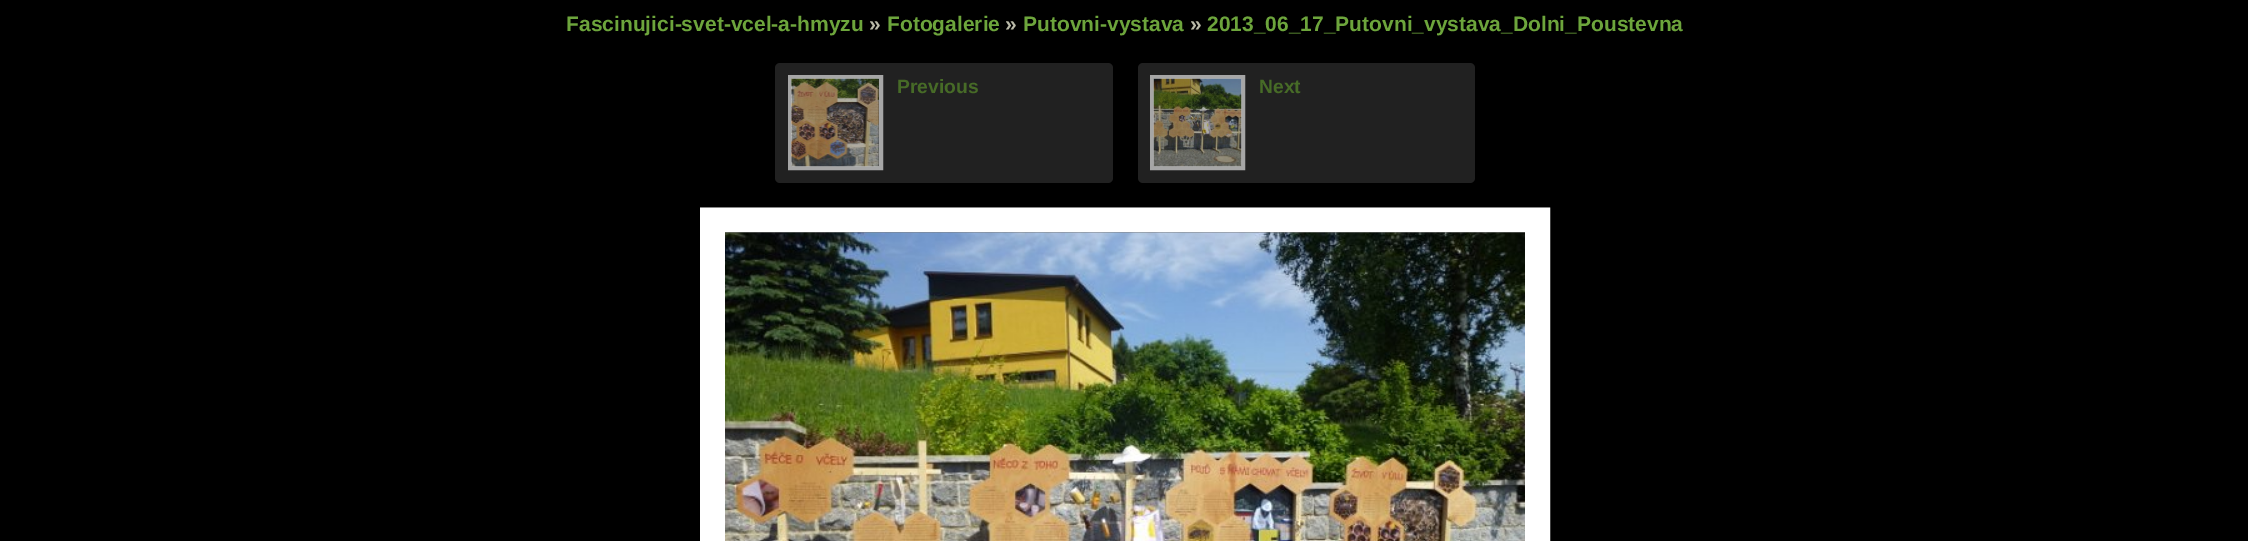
%!PS
<< /PageSize [2248 541] >> setpagedevice
/rgb { 3 { 255 div 3 1 roll } repeat setrgbcolor } def
/font { [ exch dup neg 0 0 3 -1 roll 0 0 ] selectfont } def
/text { moveto show } def
/roundrect { 5 dict begin { /r /h /w /y /x } { exch def } forall
  x r add y moveto x w add y 2 copy h add r arct x w add y h add x 1 index r arct
  x y h add x y r arct x y 2 copy exch w add exch r arct closepath end } def
/picture { 5 dict begin { /h /w /y /x /name } { exch def } forall
  gsave x y translate w h scale
  w h 8 [w 0 0 h 0 0] name (r) file false 3 colorimage grestore end } def
0 541 translate 1 -1 scale
4 setmiterlimit
0 0 0 rgb
0 0 2248 541 rectfill
33 33 33 rgb
775 63 338 120 5 roundrect fill
166 166 166 rgb
4 setlinewidth
790 77 91 91 rectstroke
(img_01.rgb) 791 78 88 89 picture
33 33 33 rgb
1138 63 337 120 5 roundrect fill
166 166 166 rgb
1152 77 91 91 rectstroke
(img_02.rgb) 1153 78 89 89 picture
255 255 255 rgb
25 setlinewidth
712.5 220 moveto 825 0 rlineto 0 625 rlineto -825 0 rlineto closepath stroke
(img_03.rgb) 725 232 800 309 picture
/LiberationSans-Bold 21 font
109 165 60 rgb
(Fascinujici-svet-vcel-a-hmyzu) 566 31 text
187 187 170 rgb
(») 869 31 text
109 165 60 rgb
(Fotogalerie) 887 31 text
187 187 170 rgb
(») 1005 31 text
109 165 60 rgb
(Putovni-vystava) 1023 31 text
187 187 170 rgb
(») 1190 31 text
109 165 60 rgb
(2013_06_17_Putovni_vystava_Dolni_Poustevna) 1207 31 text
/LiberationSans-Bold 19.25 font
71 107 39 rgb
(Previous) 897 93 text
(Next) 1259 93 text
showpage
